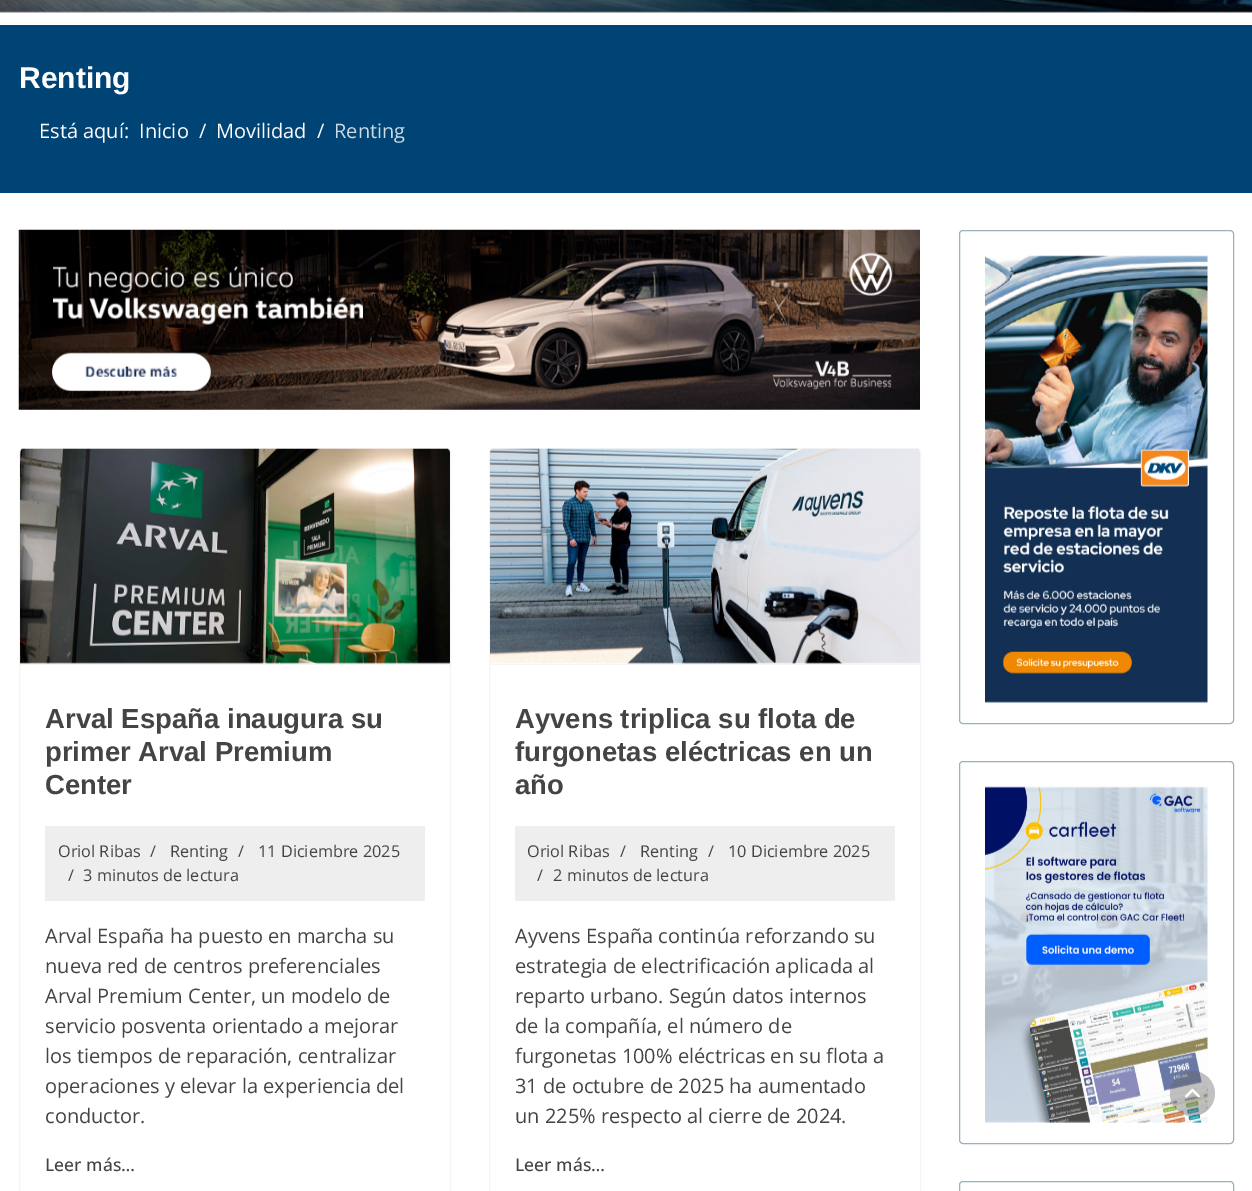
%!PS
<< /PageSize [1252 1191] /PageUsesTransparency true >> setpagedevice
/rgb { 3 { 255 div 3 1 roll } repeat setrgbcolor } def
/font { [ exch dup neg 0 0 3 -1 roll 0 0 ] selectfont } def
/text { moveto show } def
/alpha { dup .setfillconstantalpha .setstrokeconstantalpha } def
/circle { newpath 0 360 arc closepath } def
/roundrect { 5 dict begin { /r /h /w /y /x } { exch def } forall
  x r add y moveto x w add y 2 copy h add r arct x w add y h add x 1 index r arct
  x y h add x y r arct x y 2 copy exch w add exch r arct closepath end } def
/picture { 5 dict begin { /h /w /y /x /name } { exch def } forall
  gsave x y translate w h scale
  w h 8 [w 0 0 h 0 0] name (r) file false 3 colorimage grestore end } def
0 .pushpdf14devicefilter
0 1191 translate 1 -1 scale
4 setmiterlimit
255 255 255 rgb
0 0 1252 1191 rectfill
(img_01.rgb) 0 0 1252 13 picture
0 67 117 rgb
0 25 1252 168 rectfill
(img_02.rgb) 18 229 902 181 picture
245 245 245 rgb
19.5 448.5 431 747 3.5 roundrect stroke
20 664 430 1 rectfill
(img_03.rgb) 20 448 430 216 picture
238 238 238 rgb
45 826 380 75 rectfill
245 245 245 rgb
489.5 448.5 431 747 3.5 roundrect stroke
490 664 430 1 rectfill
(img_04.rgb) 490 448 430 216 picture
238 238 238 rgb
515 826 380 75 rectfill
151 177 191 rgb
959.5 230.5 274 493 3.5 roundrect stroke
(img_05.rgb) 985 255 223 448 picture
959.5 761.5 274 382 3.5 roundrect stroke
(img_06.rgb) 985 786 223 337 picture
959.5 1181.5 274 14 3.5 roundrect stroke
0.4 alpha
100 100 100 rgb
1192.5 1093.5 22.5 circle fill
1 alpha
(img_07.rgb) 1185 1088 15 10 picture
/LiberationSans-Bold 30 font
255 255 255 rgb
(Renting) 19 88 text
/OpenSans-Regular 20 font
(Está aquí:) 39 138 text
(Inicio) 139 138 text
(/) 199 138 text
(Movilidad) 216 138 text
(/) 317 138 text
204 217 227 rgb
(Renting) 334 138 text
/LiberationSans-Bold 27.5 font
68 68 68 rgb
(Arval España inaugura su) 45 728 text
(primer Arval Premium) 45 761 text
(Center) 45 794 text
/OpenSans-Regular 16.25 font
(Oriol Ribas) 58 857 text
(/) 150 857 text
(Renting) 170 857 text
(/) 238 857 text
(11 Diciembre 2025) 258 857 text
(/) 68 881 text
(3 minutos de lectura) 83 881 text
/OpenSans-Regular 20 font
(Arval España ha puesto en marcha su) 45 943 text
(nueva red de centros preferenciales) 45 973 text
(Arval Premium Center, un modelo de) 45 1003 text
(servicio posventa orientado a mejorar) 45 1033 text
(los tiempos de reparación, centralizar) 45 1063 text
(operaciones y elevar la experiencia del) 45 1093 text
(conductor.) 45 1123 text
/OpenSans-Medium 17.5 font
(Leer más…) 45 1171 text
/LiberationSans-Bold 27.5 font
(Ayvens triplica su flota de) 515 728 text
(furgonetas eléctricas en un) 515 761 text
(año) 515 794 text
/OpenSans-Regular 16.25 font
(Oriol Ribas) 527 857 text
(/) 620 857 text
(Renting) 640 857 text
(/) 708 857 text
(10 Diciembre 2025) 728 857 text
(/) 537 881 text
(2 minutos de lectura) 553 881 text
/OpenSans-Regular 20 font
(Ayvens España continúa reforzando su) 515 943 text
(estrategia de electrificación aplicada al) 515 973 text
(reparto urbano. Según datos internos) 515 1003 text
(de la compañía, el número de) 515 1033 text
(furgonetas 100% eléctricas en su flota a) 515 1063 text
(31 de octubre de 2025 ha aumentado) 515 1093 text
(un 225% respecto al cierre de 2024.) 515 1123 text
/OpenSans-Medium 17.5 font
(Leer más…) 515 1171 text
.poppdf14devicefilter showpage
